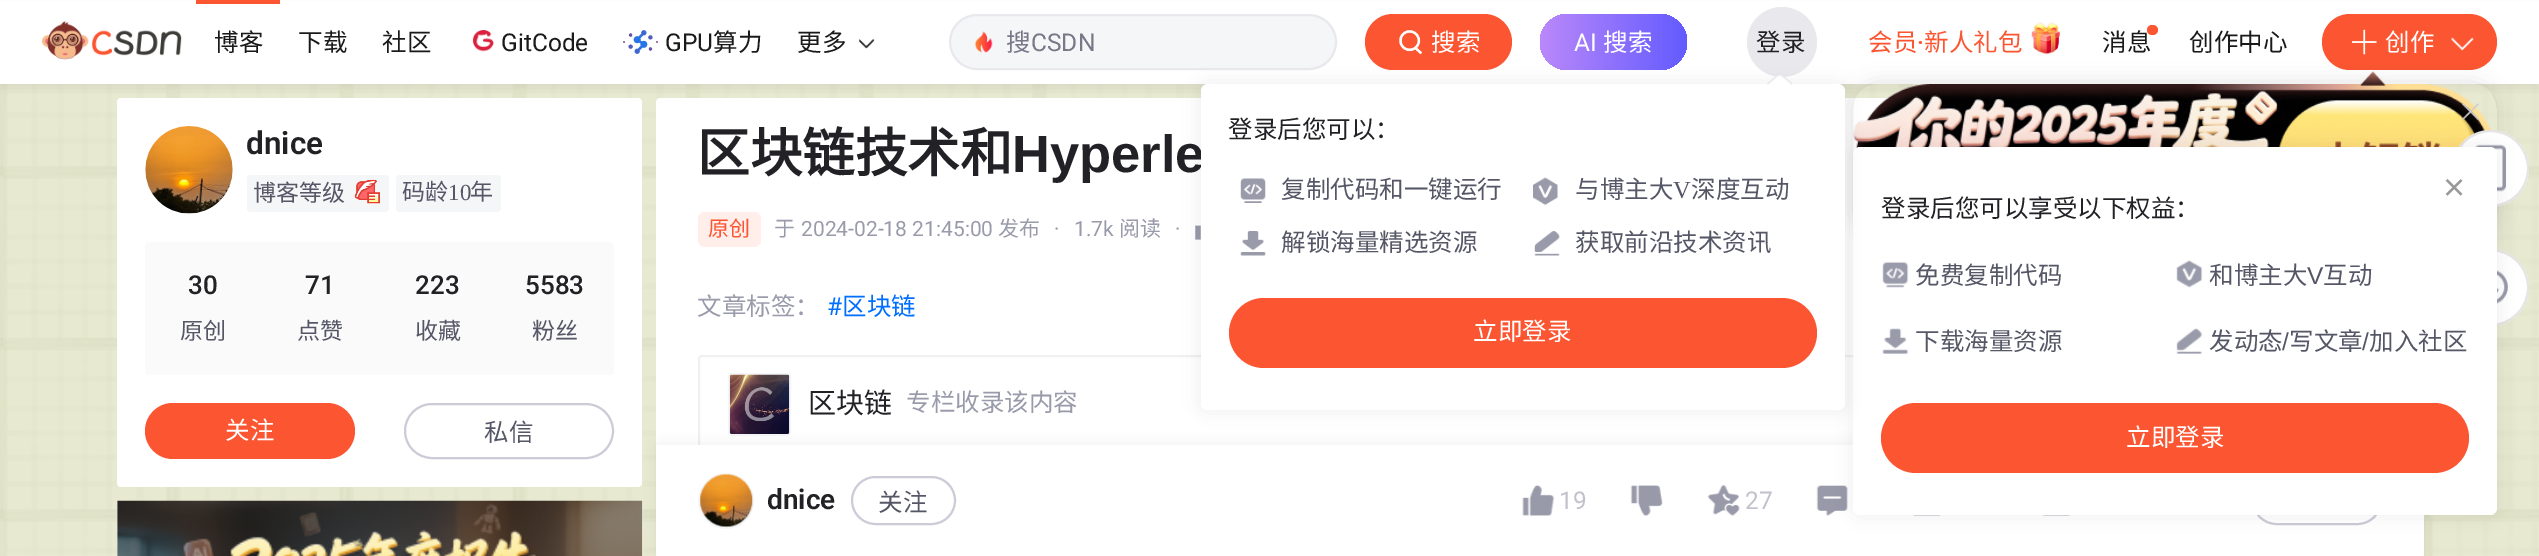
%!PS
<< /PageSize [2539 556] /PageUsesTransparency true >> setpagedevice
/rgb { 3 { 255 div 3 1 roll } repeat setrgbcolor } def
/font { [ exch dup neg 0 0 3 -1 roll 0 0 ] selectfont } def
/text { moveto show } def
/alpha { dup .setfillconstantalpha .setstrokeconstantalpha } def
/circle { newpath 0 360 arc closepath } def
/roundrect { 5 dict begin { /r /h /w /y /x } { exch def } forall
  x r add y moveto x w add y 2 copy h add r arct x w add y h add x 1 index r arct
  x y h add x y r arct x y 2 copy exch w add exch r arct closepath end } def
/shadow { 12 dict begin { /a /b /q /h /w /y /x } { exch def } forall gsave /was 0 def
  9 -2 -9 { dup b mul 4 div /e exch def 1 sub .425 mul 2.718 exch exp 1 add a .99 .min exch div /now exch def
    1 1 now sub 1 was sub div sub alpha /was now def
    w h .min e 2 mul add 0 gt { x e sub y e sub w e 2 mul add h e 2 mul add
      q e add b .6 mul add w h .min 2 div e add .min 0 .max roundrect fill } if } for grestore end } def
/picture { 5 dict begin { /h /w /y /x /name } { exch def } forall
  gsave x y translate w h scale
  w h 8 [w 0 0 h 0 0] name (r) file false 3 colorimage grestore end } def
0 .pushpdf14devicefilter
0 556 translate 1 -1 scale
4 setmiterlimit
255 255 255 rgb
0 0 2539 556 rectfill
(img_01.rgb) 0 84 2539 472 picture
117 98 525 389 4 roundrect fill
0 0 0 rgb
0 4 2539 84 0 3.5 0.05 shadow
255 255 255 rgb
0 1 2539 83 rectfill
(img_02.rgb) 42 21 140 39 picture
252 85 49 rgb
196 0 84 4 rectfill
(img_03.rgb) 472 30 22 22 picture
(img_04.rgb) 623 30 35 24 picture
(img_05.rgb) 859 39 16 10 picture
245 246 247 rgb
950 15 386 54 27 roundrect gsave fill grestore
232 232 237 rgb
2 setlinewidth
stroke
(img_06.rgb) 974 31 19 22 picture
252 85 49 rgb
1365 14 147 56 28 roundrect fill
(img_07.rgb) 1399 30 23 25 picture
gsave 1540 14 147 56 28 roundrect clip newpath
<< /ShadingType 2 /ColorSpace /DeviceRGB /Coords [1540 42 1687 42] /Extend [true true] /Function << /FunctionType 2 /Domain [0 1] /C0 [0.729 0.533 0.98] /C1 [0.388 0.357 1] /N 1 >> >> shfill grestore
232 232 237 rgb
1782 42 35 circle fill
(img_13.rgb) 2031 22 29 33 picture
252 85 49 rgb
2322 14 175 56 28 roundrect fill
(img_14.rgb) 2352 29 25 26 picture
255 255 255 rgb
660 98 moveto 1760 0 rlineto 2 0 4 2 4 4 rcurveto 0 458 rlineto -1768 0 rlineto 0 -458 rlineto 0 -2 2 -4 4 -4 rcurveto closepath fill
gsave
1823 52 moveto 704 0 rlineto 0 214 rlineto -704 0 rlineto closepath 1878 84 moveto 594 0 rlineto 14 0 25 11 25 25 rcurveto 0 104 rlineto 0 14 -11 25 -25 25 rcurveto -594 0 rlineto -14 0 -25 -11 -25 -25 rcurveto 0 -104 rlineto 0 -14 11 -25 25 -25 rcurveto closepath eoclip newpath
103 103 103 rgb
1853 82 644 154 25 9.5 0.19 shadow
grestore
(img_17.rgb) 1853 84 639 65 picture
(img_22.rgb) 1195 225 6 15 picture
240 240 240 rgb
699 356 1682 96 3 roundrect stroke
(img_21.rgb) 117 500 526 56 picture
245 246 247 rgb
729 374 61 61 3 roundrect stroke
(img_23.rgb) 729 374 61 60 picture
0 0 0 rgb
656 443 1768 112 4 7 0.06 shadow
255 255 255 rgb
656 445 moveto 1768 0 rlineto 0 108 rlineto 0 2 -2 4 -4 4 rcurveto -1760 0 rlineto -2 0 -4 -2 -4 -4 rcurveto closepath fill
204 204 216 rgb
2253 477 128 47 23.5 roundrect stroke
(img_18.rgb) 2462 103 17 17 picture
(img_28.rgb) 1816 485 32 31 picture
(img_29.rgb) 1913 515 28 1 picture
(img_30.rgb) 2042 515 28 1 picture
255 255 255 rgb
2490.5 168.5 38.5 circle fill
0.1 alpha
0 0 0 rgb
2490.5 168.5 37.5 circle stroke
1 alpha
(img_35.rgb) 2475 144 31 48 picture
255 255 255 rgb
2490.5 287.5 38.5 circle fill
0.1 alpha
0 0 0 rgb
2490.5 287.5 37.5 circle stroke
1 alpha
(img_36.rgb) 2497 270 11 34 picture
1850 144 651 374 11 9 0.06 shadow
255 255 255 rgb
1853 147 644 368 7 roundrect fill
0 0 0 rgb
1197 81 651 332 11 9 0.06 shadow
(img_15.rgb) 2451 37 23 14 picture
(img_16.rgb) 2360 71 26 15 picture
(img_19.rgb) 145 126 88 88 picture
245 246 247 rgb
247 175 142 37 4 roundrect fill
(img_20.rgb) 354 179 26 25 picture
396 175 105 37 4 roundrect fill
250 250 250 rgb
145 242 469 133 4 roundrect fill
252 85 49 rgb
145 403 210 56 28 roundrect fill
204 204 216 rgb
405 404 208 54 27 roundrect stroke
255 238 234 rgb
698 212 63 35 7 roundrect fill
245 246 247 rgb
726 501 27 circle stroke
(img_24.rgb) 699 473 54 55 picture
204 204 216 rgb
852 477 103 47 23.5 roundrect stroke
(img_25.rgb) 1522 485 33 31 picture
(img_26.rgb) 1630 485 33 31 picture
(img_27.rgb) 1707 484 33 32 picture
(img_31.rgb) 1882 261 27 27 picture
(img_32.rgb) 2176 260 27 28 picture
(img_33.rgb) 1882 328 27 26 picture
(img_34.rgb) 2176 328 27 26 picture
252 85 49 rgb
1881 403 588 70 35 roundrect fill
/NotoSansCJKSC-Regular 24.5 font
26 26 26 rgb
(博客) 214 51 text
(下载) 298 51 text
(社区) 382 51 text
/Roboto-Regular 24.5 font
(GitCode) 501 51 text
(GPU) 665 51 text
/NotoSansCJKSC-Regular 24.5 font
(算力) 713 51 text
(更多) 797 51 text
119 120 136 rgb
(搜) 1006 51 text
/Roboto-Regular 24.5 font
(CSDN) 1031 51 text
/NotoSansCJKSC-Regular 24.5 font
255 255 255 rgb
(搜索) 1431 51 text
/Roboto-Regular 24.5 font
(AI) 1574 51 text
/NotoSansCJKSC-Regular 24.5 font
(搜索) 1603 51 text
34 34 38 rgb
(登录) 1756 51 text
252 85 49 rgb
(会员) 1868 51 text
/Roboto-Medium 24.5 font
(·) 1917 51 text
/NotoSansCJKSC-Regular 24.5 font
(新人礼包) 1924 51 text
26 26 26 rgb
(消息) 2102 51 text
252 85 49 rgb
2147 25 11 10 5 roundrect fill
26 26 26 rgb
(创作中心) 2189 51 text
255 255 255 rgb
(创作) 2385 51 text
/Roboto-SemiBold 31.5 font
34 34 38 rgb
(dnice) 246 154 text
/NotoSansCJKSC-Regular 23 font
85 86 102 rgb
(博客等级) 253 201 text
(码龄) 402 200 text
/LiberationSerif-Regular 23 font
(10) 448 200 text
/NotoSansCJKSC-Regular 23 font
(年) 470 200 text
/Roboto-Medium 26 font
34 34 38 rgb
(30) 188 294 text
/NotoSansCJKSC-Regular 23 font
85 86 102 rgb
(原创) 180 339 text
/Roboto-Medium 26 font
34 34 38 rgb
(71) 305 294 text
/NotoSansCJKSC-Regular 23 font
85 86 102 rgb
(点赞) 297 339 text
/Roboto-Medium 26 font
34 34 38 rgb
(223) 415 294 text
/NotoSansCJKSC-Regular 23 font
85 86 102 rgb
(收藏) 415 339 text
/Roboto-Medium 26 font
34 34 38 rgb
(5583) 525 294 text
/NotoSansCJKSC-Regular 23 font
85 86 102 rgb
(粉丝) 532 339 text
/NotoSansCJKSC-Regular 24.5 font
255 255 255 rgb
(关注) 225 439 text
85 86 102 rgb
(私信) 484 441 text
/NotoSansCJKSC-Bold 52.5 font
34 34 38 rgb
(区块链技术和) 697 172 text
/LiberationSans-Bold 52.5 font
(Hyperle) 1012 172 text
255 255 255 rgb
1201 84 644 326 7 roundrect fill
(img_12.rgb) 1534 231 26 25 picture
(img_11.rgb) 1240 231 26 25 picture
(img_10.rgb) 1533 177 25 28 picture
(img_09.rgb) 1240 178 26 25 picture
(img_08.rgb) 1767 75 25 10 picture
252 85 49 rgb
1229 298 588 70 35 roundrect fill
/NotoSansCJKSC-Regular 24.5 font
255 255 255 rgb
(立即登录) 1473 340 text
85 86 102 rgb
(获取前沿技术资讯) 1575 251 text
(解锁海量精选资源) 1281 251 text
(深度互动) 1691 198 text
/LiberationSerif-Regular 24.5 font
(V) 1673 198 text
/NotoSansCJKSC-Regular 24.5 font
(与博主大) 1575 198 text
(复制代码和一键运行) 1281 198 text
34 34 38 rgb
(登录后您可以：) 1228 138 text
/NotoSansCJKSC-Regular 21 font
252 85 49 rgb
(原创) 708 236 text
153 154 170 rgb
(于) 774 236 text
/Roboto-Regular 21 font
(2024-02-18 21:45:00) 801 236 text
/NotoSansCJKSC-Regular 21 font
(发布) 998 236 text
/Roboto-Regular 21 font
(·) 1054 236 text
(1.7k) 1074 236 text
/NotoSansCJKSC-Regular 21 font
(阅读) 1119 236 text
/Roboto-Regular 21 font
(·) 1175 236 text
/NotoSansCJKSC-Regular 24.5 font
(文章标签：) 697 315 text
/Roboto-Regular 24.5 font
0 111 255 rgb
(#) 827 315 text
/NotoSansCJKSC-Regular 24.5 font
(区块链) 842 315 text
/NotoSansCJKSC-Regular 28 font
34 34 38 rgb
(区块链) 808 413 text
/NotoSansCJKSC-Regular 24.5 font
153 154 170 rgb
(专栏收录该内容) 906 411 text
/Roboto-SemiBold 28 font
34 34 38 rgb
(dnice) 767 509 text
/NotoSansCJKSC-Regular 24.5 font
85 86 102 rgb
(关注) 878 511 text
/Roboto-Regular 24.5 font
194 194 204 rgb
(19) 1559 509 text
(27) 1745 509 text
/LiberationSans-Regular 38 font
153 153 153 rgb
(×) 2443 200 text
/NotoSansCJKSC-Regular 24.5 font
34 34 38 rgb
(登录后您可以享受以下权益：) 1881 217 text
85 86 102 rgb
(免费复制代码) 1915 284 text
(和博主大) 2209 284 text
/LiberationSans-Regular 24.5 font
(V) 2307 284 text
/NotoSansCJKSC-Regular 24.5 font
(互动) 2323 284 text
(下载海量资源) 1915 350 text
(发动态) 2209 350 text
/LiberationSans-Regular 24.5 font
(/) 2282 350 text
/NotoSansCJKSC-Regular 24.5 font
(写文章) 2289 350 text
/LiberationSans-Regular 24.5 font
(/) 2362 350 text
/NotoSansCJKSC-Regular 24.5 font
(加入社区) 2369 350 text
255 255 255 rgb
(立即登录) 2126 446 text
.poppdf14devicefilter showpage
